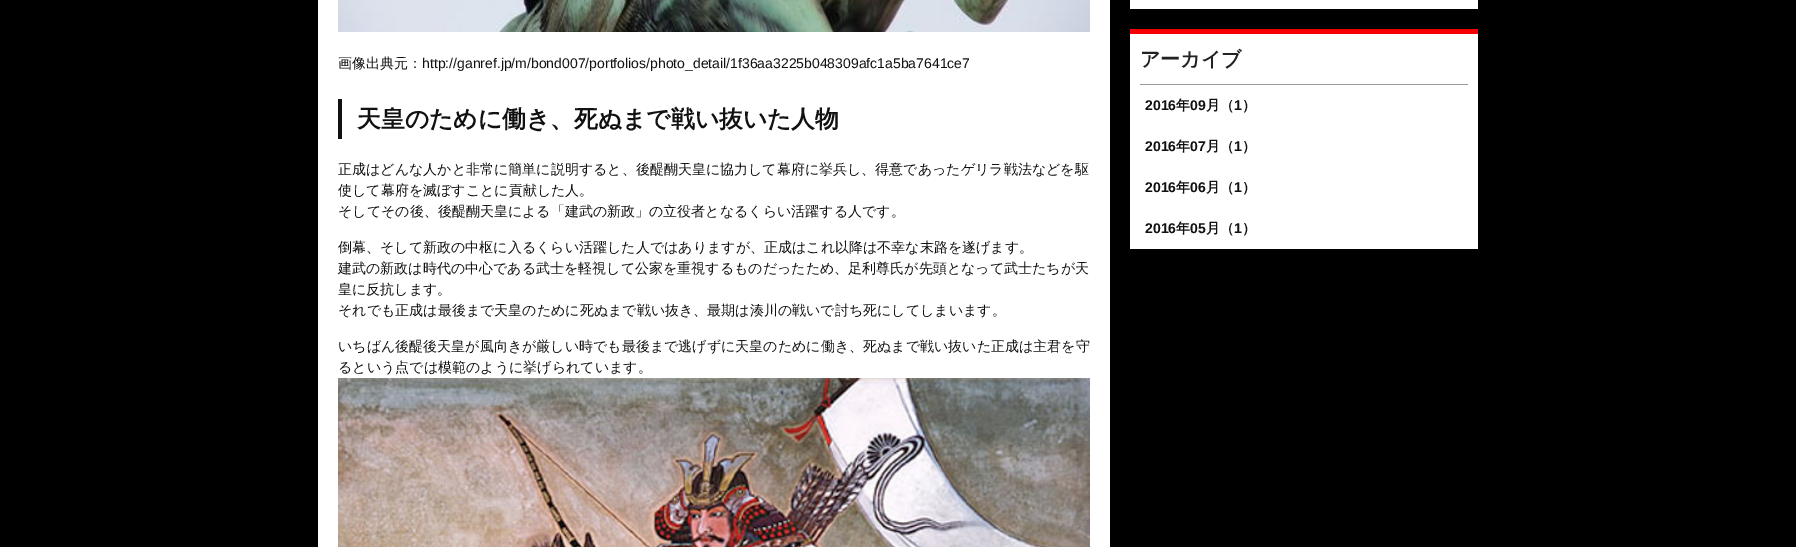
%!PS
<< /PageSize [1796 547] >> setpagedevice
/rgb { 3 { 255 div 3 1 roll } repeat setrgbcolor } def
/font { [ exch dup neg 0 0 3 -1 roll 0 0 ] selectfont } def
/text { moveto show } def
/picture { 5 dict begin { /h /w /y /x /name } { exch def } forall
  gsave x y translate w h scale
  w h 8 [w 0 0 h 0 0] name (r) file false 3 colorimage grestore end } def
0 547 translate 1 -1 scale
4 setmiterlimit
0 0 0 rgb
0 0 1796 547 rectfill
255 255 255 rgb
318 0 792 547 rectfill
(img_01.rgb) 338 0 752 32 picture
17 17 17 rgb
338 99 4 40 rectfill
(img_02.rgb) 338 378 752 169 picture
255 255 255 rgb
1130 0 348 9 rectfill
1130 34 348 215 rectfill
245 0 0 rgb
1130 29 348 5 rectfill
153 153 153 rgb
1140 84 328 1 rectfill
/WenQuanYiZenHei-Medium 14 font
17 17 17 rgb
(画像出典元：) 338 68 text
/LiberationSans-Regular 14 font
(http://ganref.jp/m/bond007/portfolios/photo_detail/1f36aa3225b048309afc1a5ba7641ce7) 422 68 text
/WenQuanYiZenHei-Bold 23.8 font
(天皇のために働き、死ぬまで戦い抜いた人物) 357 127 text
/WenQuanYiZenHei-Medium 14 font
(正成はどんな人かと非常に簡単に説明すると、後醍醐天皇に協力して幕府に挙兵し、得意であったゲリラ戦法などを駆) 338 174 text
(使して幕府を滅ぼすことに貢献した人。) 338 195 text
(そしてその後、後醍醐天皇による「建武の新政」の立役者となるくらい活躍する人です。) 338 216 text
(倒幕、そして新政の中枢に入るくらい活躍した人ではありますが、正成はこれ以降は不幸な末路を遂げます。) 338 252 text
(建武の新政は時代の中心である武士を軽視して公家を重視するものだったため、足利尊氏が先頭となって武士たちが天) 338 273 text
(皇に反抗します。) 338 294 text
(それでも正成は最後まで天皇のために死ぬまで戦い抜き、最期は湊川の戦いで討ち死にしてしまいます。) 338 315 text
(いちばん後醍後天皇が風向きが厳しい時でも最後まで逃げずに天皇のために働き、死ぬまで戦い抜いた正成は主君を守) 338 351 text
(るという点では模範のように挙げられています。) 338 372 text
/WenQuanYiZenHei-Bold 20 font
34 34 34 rgb
(アーカイブ) 1140 66 text
/LiberationSans-Bold 14 font
17 17 17 rgb
(2016) 1145 110 text
/WenQuanYiZenHei-Bold 14 font
(年) 1176 110 text
/LiberationSans-Bold 14 font
(09) 1190 110 text
/WenQuanYiZenHei-Bold 14 font
(月（) 1206 110 text
/LiberationSans-Bold 14 font
(1) 1234 110 text
/WenQuanYiZenHei-Bold 14 font
(）) 1242 110 text
/LiberationSans-Bold 14 font
(2016) 1145 151 text
/WenQuanYiZenHei-Bold 14 font
(年) 1176 151 text
/LiberationSans-Bold 14 font
(07) 1190 151 text
/WenQuanYiZenHei-Bold 14 font
(月（) 1206 151 text
/LiberationSans-Bold 14 font
(1) 1234 151 text
/WenQuanYiZenHei-Bold 14 font
(）) 1242 151 text
/LiberationSans-Bold 14 font
(2016) 1145 192 text
/WenQuanYiZenHei-Bold 14 font
(年) 1176 192 text
/LiberationSans-Bold 14 font
(06) 1190 192 text
/WenQuanYiZenHei-Bold 14 font
(月（) 1206 192 text
/LiberationSans-Bold 14 font
(1) 1234 192 text
/WenQuanYiZenHei-Bold 14 font
(）) 1242 192 text
/LiberationSans-Bold 14 font
(2016) 1145 233 text
/WenQuanYiZenHei-Bold 14 font
(年) 1176 233 text
/LiberationSans-Bold 14 font
(05) 1190 233 text
/WenQuanYiZenHei-Bold 14 font
(月（) 1206 233 text
/LiberationSans-Bold 14 font
(1) 1234 233 text
/WenQuanYiZenHei-Bold 14 font
(）) 1242 233 text
showpage
